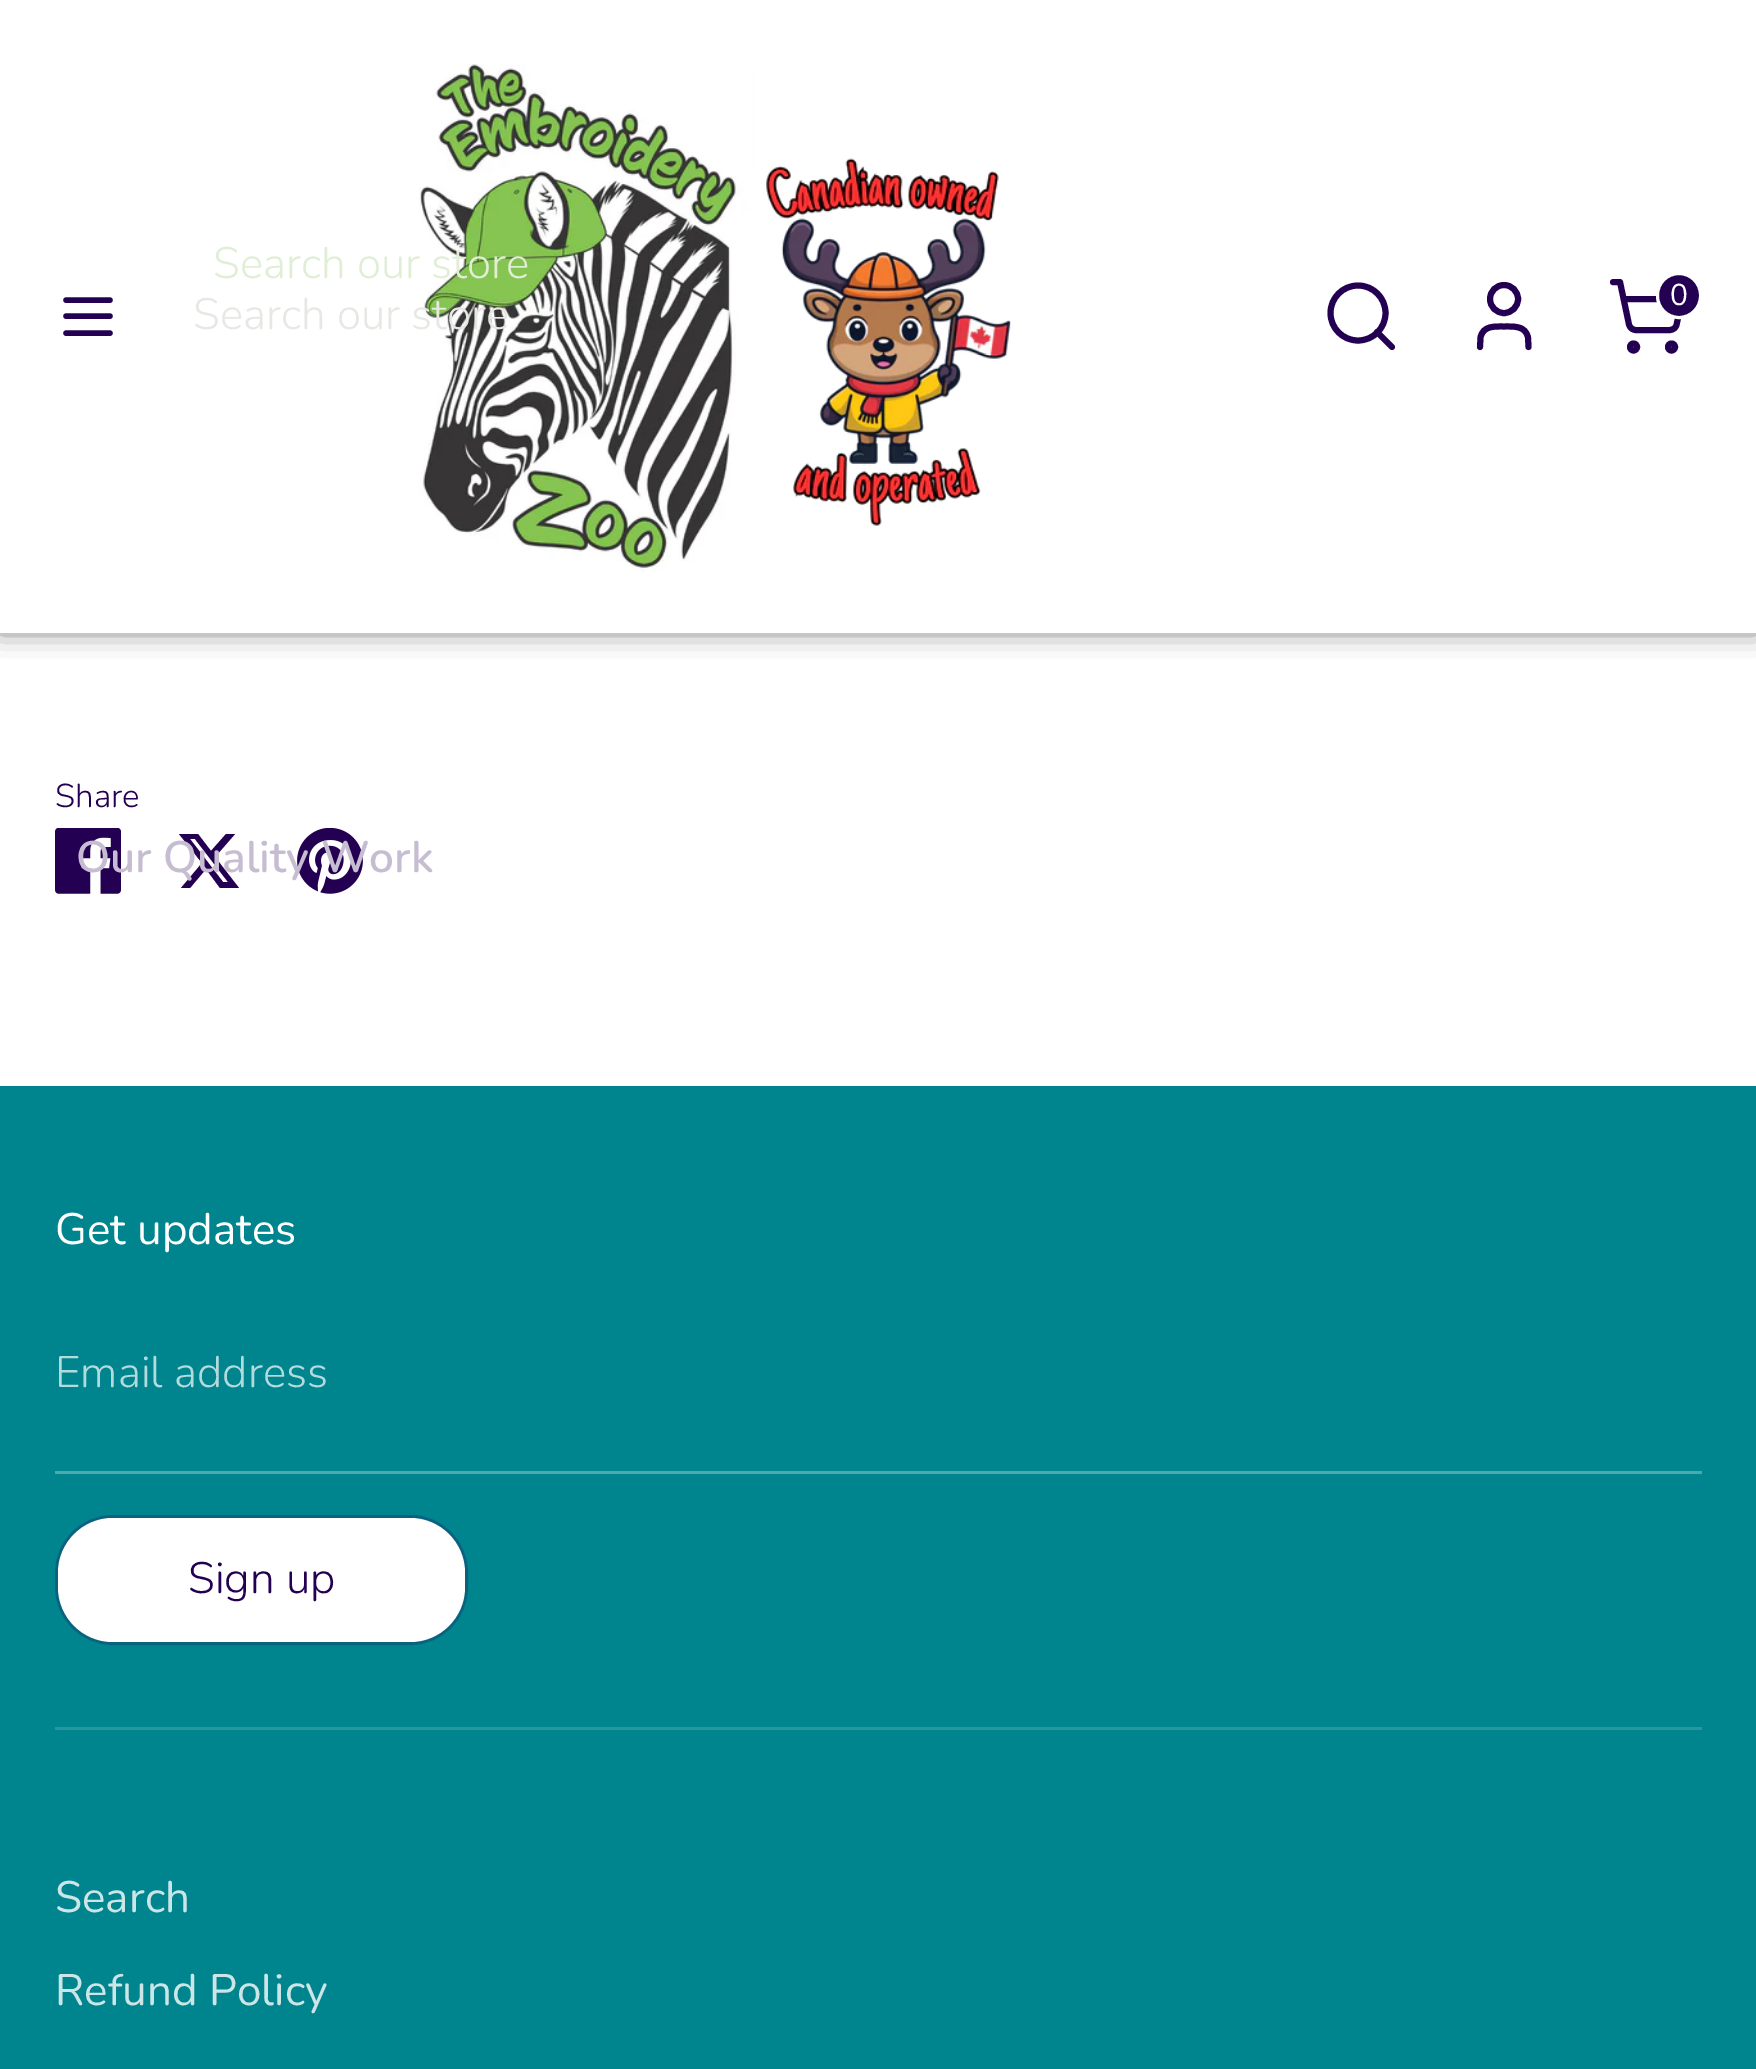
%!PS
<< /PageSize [1756 2069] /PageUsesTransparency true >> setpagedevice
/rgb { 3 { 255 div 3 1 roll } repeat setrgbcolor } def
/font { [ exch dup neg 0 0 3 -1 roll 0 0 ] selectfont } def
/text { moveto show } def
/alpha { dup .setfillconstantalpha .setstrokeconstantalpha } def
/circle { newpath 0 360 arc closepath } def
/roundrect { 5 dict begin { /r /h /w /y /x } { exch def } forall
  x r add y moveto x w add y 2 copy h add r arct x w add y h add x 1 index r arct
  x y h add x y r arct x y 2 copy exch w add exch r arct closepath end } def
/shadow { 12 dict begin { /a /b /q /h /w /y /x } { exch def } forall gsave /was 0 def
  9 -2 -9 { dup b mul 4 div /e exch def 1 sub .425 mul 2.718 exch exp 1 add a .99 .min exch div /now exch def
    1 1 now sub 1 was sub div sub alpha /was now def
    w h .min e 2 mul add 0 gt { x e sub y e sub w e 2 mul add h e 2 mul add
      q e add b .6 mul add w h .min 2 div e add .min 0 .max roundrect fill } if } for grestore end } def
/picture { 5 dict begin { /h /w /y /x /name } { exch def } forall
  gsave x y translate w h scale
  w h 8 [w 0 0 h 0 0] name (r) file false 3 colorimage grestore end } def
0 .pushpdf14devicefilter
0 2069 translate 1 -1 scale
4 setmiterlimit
255 255 255 rgb
0 0 1756 2069 rectfill
0 0 0 rgb
0 -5 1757 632 0 14 0.75 shadow
255 255 255 rgb
0 0 1756 633 rectfill
(img_01.rgb) 419 64 592 509 picture
35 0 81 rgb
5.5 setlinewidth
1 setlinecap
1 setlinejoin
66 316 moveto 44 0 rlineto 66 300 moveto 44 0 rlineto 66 333 moveto 44 0 rlineto stroke
6 setlinewidth
0 setlinecap
0 setlinejoin
1358 313 27.5 circle stroke
1 setlinecap
1 setlinejoin
1392 347 moveto -15 -15 rlineto stroke
1528.5 347 moveto -0.5 -9.5 rlineto -2.5 -12 -14 -11 -24 -11 rcurveto -9.5 0 -21 -1 -23.5 11 rcurveto -0.5 9.5 rlineto stroke
0 setlinecap
0 setlinejoin
1504 299 14 circle stroke
1633.5 347 3.5 circle stroke
1671.5 347 3.5 circle stroke
1 setlinecap
1 setlinejoin
1613 282 moveto 7 0 rlineto 9 42.5 rlineto 1 3.5 3.5 5.5 7 5.5 rcurveto 33.5 0 rlineto 3.5 0 6 -2 7 -5 rcurveto 5.5 -26 rlineto -58.5 0 rlineto stroke
1657.5 273.5 43 44 21.5 roundrect gsave fill grestore
255 255 255 rgb
3 setlinewidth
0 setlinecap
0 setlinejoin
stroke
(img_02.rgb) 55 828 66 66 picture
35 0 81 rgb
226 834 moveto 9 0 rlineto -20 23 rlineto 24 31 rlineto -19 0 rlineto -14 -19 rlineto -16 19 rlineto -9 0 rlineto 21 -25 rlineto -23 -29 rlineto 19 0 rlineto 13 17 rlineto closepath 223 882 moveto 5 0 rlineto -33 -43 rlineto -5 0 rlineto closepath fill
(img_03.rgb) 297 828 66 66 picture
0 132 142 rgb
0 1086 1756 983 rectfill
77 169 176 rgb
55 1471 1647 3 rectfill
9 99 127 rgb
56.5 1516.5 410 127 56.5 roundrect stroke
255 255 255 rgb
58 1518 407 124 55 roundrect fill
38 150 159 rgb
55 1727 1647 3 rectfill
/Nunito-Light 44 font
224 238 213 rgb
(Search our store) 213 278 text
/Nunito-SemiBold 44 font
198 189 210 rgb
(Our Quality Work) 76 872 text
/Nunito-Regular 30 font
255 255 255 rgb
(0) 1670 305 text
/Nunito-Light 44 font
230 232 228 rgb
(Search our store) 193 329 text
/Nunito-Light 33 font
35 0 81 rgb
(Share) 55 807 text
/Nunito-Regular 44 font
255 255 255 rgb
(Get updates) 55 1244 text
/Nunito-Light 44 font
179 218 221 rgb
(Email address) 55 1387 text
35 0 81 rgb
(Sign up) 188 1593 text
/Nunito-Regular 44 font
204 230 232 rgb
(Search) 55 1912 text
(Refund Policy) 55 2005 text
.poppdf14devicefilter showpage
